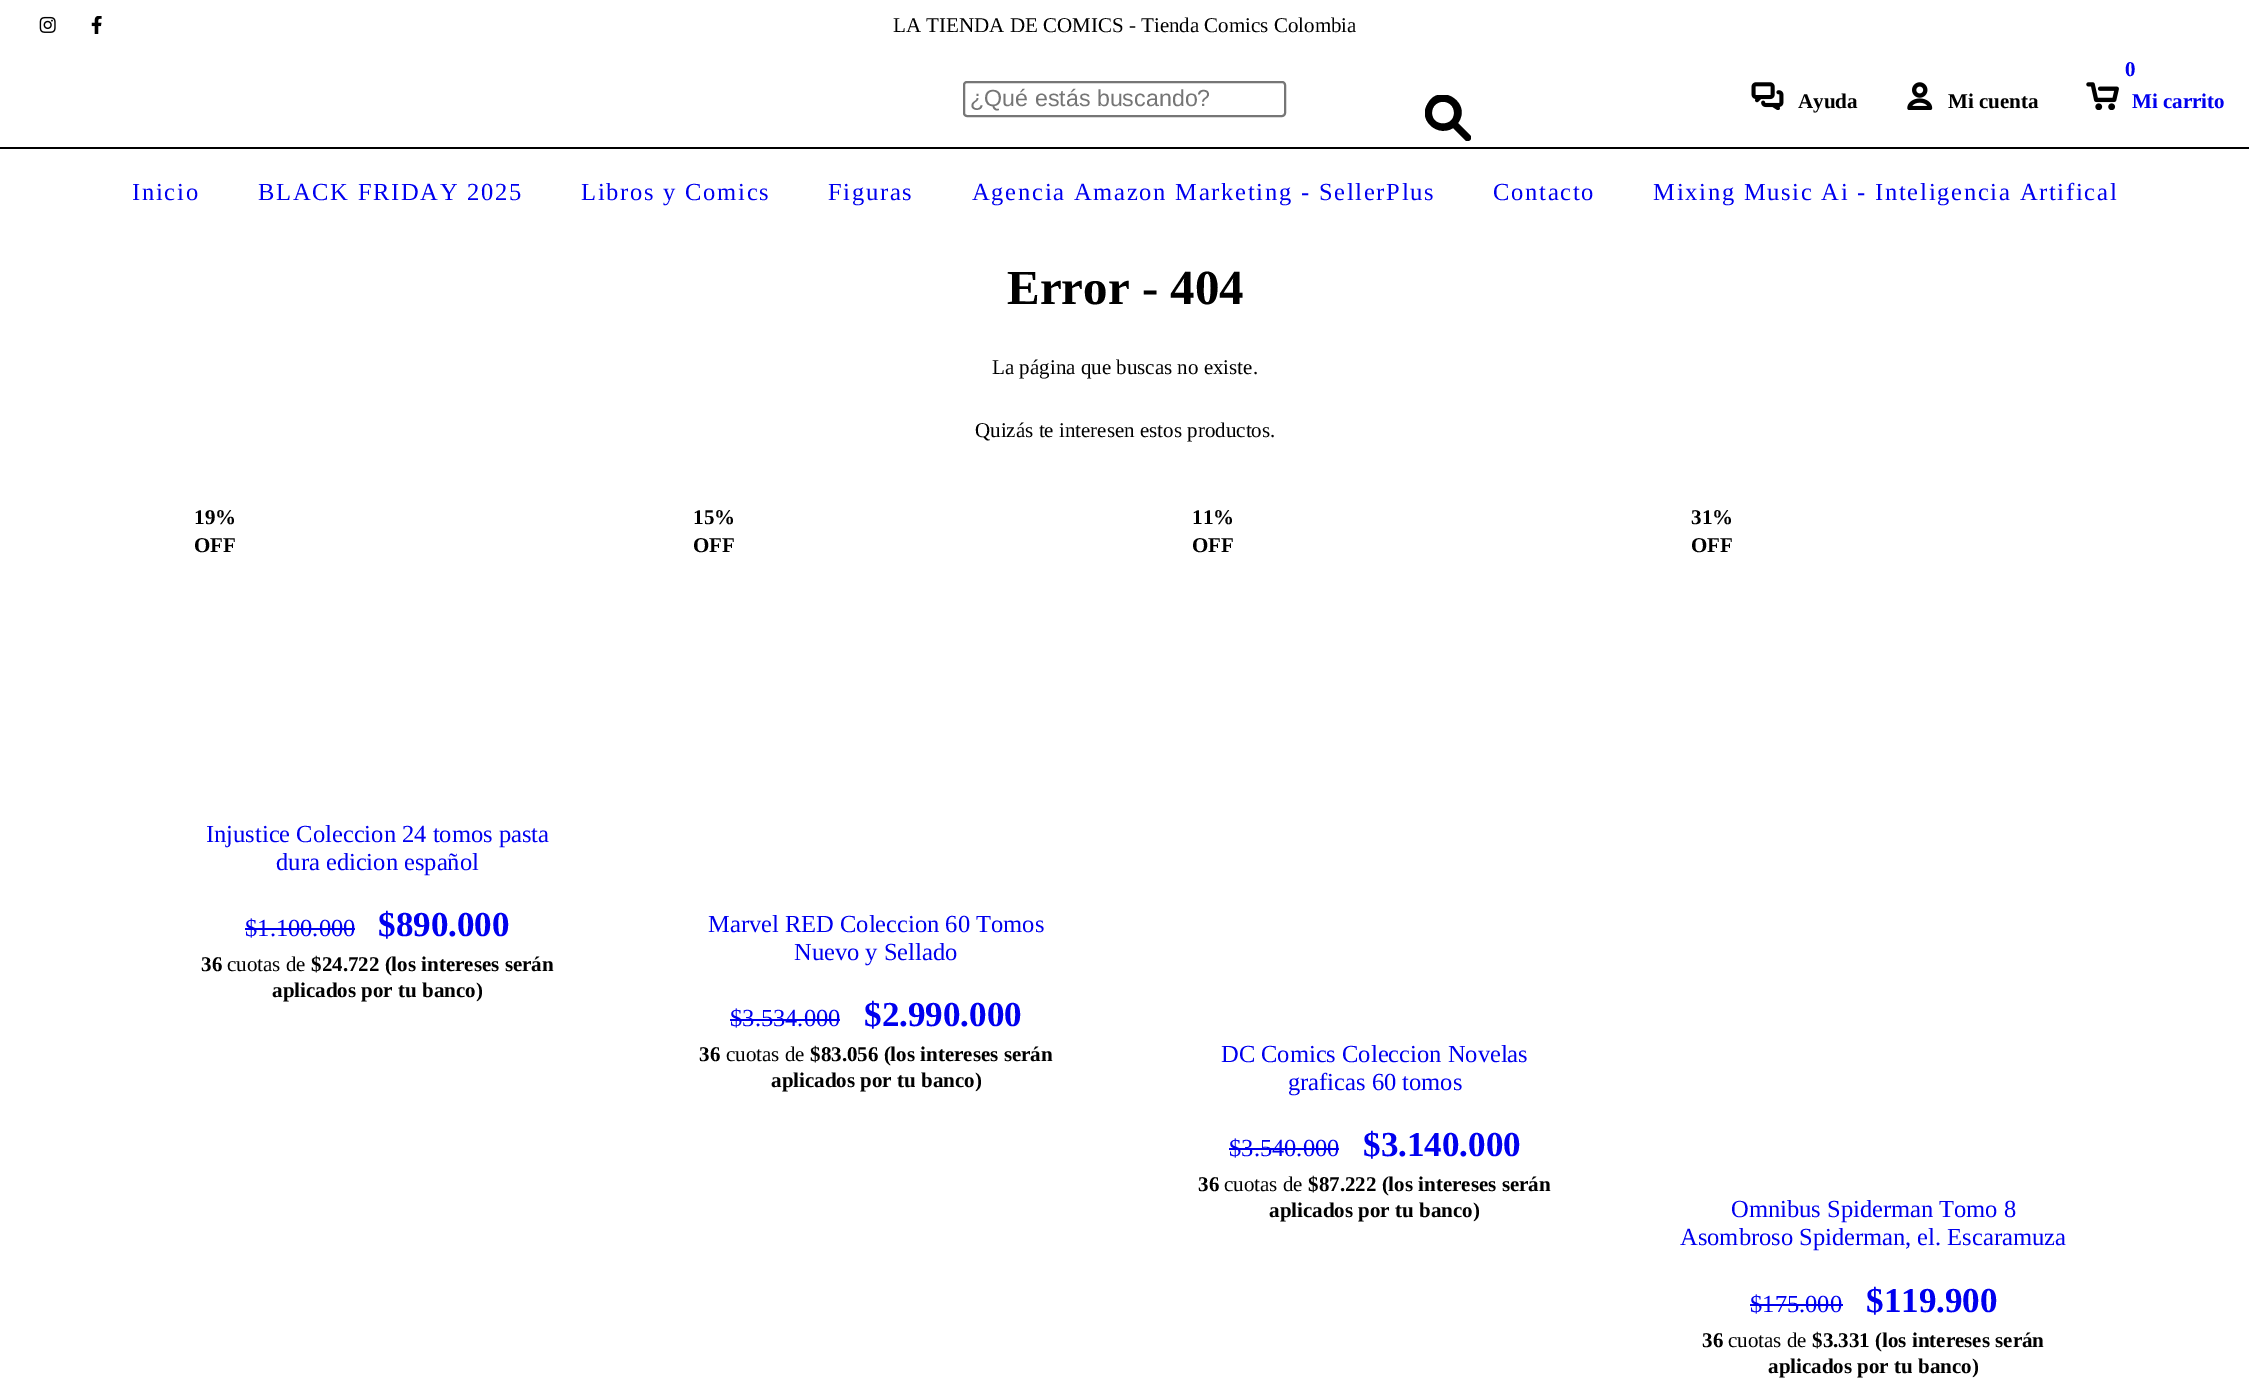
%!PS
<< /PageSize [2249 1394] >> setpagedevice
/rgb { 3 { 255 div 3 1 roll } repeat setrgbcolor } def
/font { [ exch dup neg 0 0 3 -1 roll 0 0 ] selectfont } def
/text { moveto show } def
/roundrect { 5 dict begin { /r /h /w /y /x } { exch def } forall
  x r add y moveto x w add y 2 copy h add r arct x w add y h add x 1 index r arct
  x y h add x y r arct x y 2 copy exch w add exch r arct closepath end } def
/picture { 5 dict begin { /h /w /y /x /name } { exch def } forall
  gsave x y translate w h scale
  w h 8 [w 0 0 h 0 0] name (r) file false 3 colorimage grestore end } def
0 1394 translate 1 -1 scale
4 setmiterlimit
255 255 255 rgb
0 0 2249 1394 rectfill
(img_01.rgb) 39 16 17 17 picture
(img_02.rgb) 91 16 11 18 picture
118 118 118 rgb
2 setlinewidth
964 82 321 34 3 roundrect stroke
gsave
1425 95 46 46 rectclip
0 0 0 rgb
1470 135 moveto -12 -12 rlineto 15 -21 -20 -42 -31 -18 rcurveto -3 5 -3 11 0 16 rcurveto 5 9 17 13 26 7 rcurveto 13 13 rlineto 4 1 7 -3 4 -6 rcurveto closepath 1432 113 moveto 0 -15 22 -15 22 0 rcurveto 0 14 -22 14 -22 0 rcurveto closepath fill
grestore
(img_03.rgb) 1751 82 33 28 picture
(img_04.rgb) 1907 82 26 28 picture
(img_05.rgb) 2086 82 33 28 picture
0 0 0 rgb
0 147 2249 2 rectfill
0 0 238 rgb
245 928 110 2 rectfill
730 1019 110 2 rectfill
1229 1148 110 2 rectfill
1750 1304 93 2 rectfill
/LiberationSerif-Regular 21 font
0 0 0 rgb
(LA TIENDA DE COMICS - Tienda Comics Colombia) 893 32 text
/LiberationSans-Regular 23.25 font
117 117 117 rgb
(¿Qué estás buscando?) 970 106 text
/LiberationSerif-Bold 21 font
0 0 0 rgb
(Ayuda) 1798 108 text
(Mi cuenta) 1948 108 text
0 0 238 rgb
(0) 2125 76 text
(Mi carrito) 2132 108 text
/LiberationSerif-Regular 24.5 font
132 200 moveto 1.75 0 (Inicio) ashow
258 200 moveto 1.75 0 (BLACK FRIDAY 2025) ashow
581 200 moveto 1.75 0 (Libros y Comics) ashow
828 200 moveto 1.75 0 (Figuras) ashow
972 200 moveto 1.75 0 (Agencia Amazon Marketing - SellerPlus) ashow
1493 200 moveto 1.75 0 (Contacto) ashow
1653 200 moveto 1.75 0 (Mixing Music Ai - Inteligencia Artifical) ashow
/LiberationSerif-Bold 49 font
0 0 0 rgb
(Error - 404) 1007 304 text
/LiberationSerif-Regular 21 font
(La página que buscas no existe.) 992 374 text
(Quizás te interesen estos productos.) 975 437 text
/LiberationSerif-Bold 21 font
(19%) 194 524 text
(OFF) 194 552 text
/LiberationSerif-Regular 24.5 font
0 0 238 rgb
(Injustice Coleccion 24 tomos pasta) 206 842 text
(dura edicion español) 276 870 text
($1.100.000) 245 936 text
/LiberationSerif-Bold 35 font
($890.000) 378 936 text
/LiberationSerif-Bold 21 font
0 0 0 rgb
(36) 201 971 text
/LiberationSerif-Regular 21 font
(cuotas de) 227 971 text
/LiberationSerif-Bold 21 font
($24.722 \(los intereses serán) 311 971 text
(aplicados por tu banco\)) 272 997 text
(15%) 693 524 text
(OFF) 693 552 text
/LiberationSerif-Regular 24.5 font
0 0 238 rgb
(Marvel RED Coleccion 60 Tomos) 708 932 text
(Nuevo y Sellado) 794 960 text
($3.534.000) 730 1026 text
/LiberationSerif-Bold 35 font
($2.990.000) 864 1026 text
/LiberationSerif-Bold 21 font
0 0 0 rgb
(36) 699 1061 text
/LiberationSerif-Regular 21 font
(cuotas de) 726 1061 text
/LiberationSerif-Bold 21 font
($83.056 \(los intereses serán) 810 1061 text
(aplicados por tu banco\)) 771 1087 text
(11%) 1192 524 text
(OFF) 1192 552 text
/LiberationSerif-Regular 24.5 font
0 0 238 rgb
(DC Comics Coleccion Novelas) 1221 1062 text
(graficas 60 tomos) 1288 1090 text
($3.540.000) 1229 1156 text
/LiberationSerif-Bold 35 font
($3.140.000) 1363 1156 text
/LiberationSerif-Bold 21 font
0 0 0 rgb
(36) 1198 1191 text
/LiberationSerif-Regular 21 font
(cuotas de) 1224 1191 text
/LiberationSerif-Bold 21 font
($87.222 \(los intereses serán) 1308 1191 text
(aplicados por tu banco\)) 1269 1217 text
(31%) 1691 524 text
(OFF) 1691 552 text
/LiberationSerif-Regular 24.5 font
0 0 238 rgb
(Omnibus Spiderman Tomo 8) 1731 1217 text
(Asombroso Spiderman, el. Escaramuza) 1680 1245 text
($175.000) 1750 1312 text
/LiberationSerif-Bold 35 font
($119.900) 1866 1312 text
/LiberationSerif-Bold 21 font
0 0 0 rgb
(36) 1702 1347 text
/LiberationSerif-Regular 21 font
(cuotas de) 1728 1347 text
/LiberationSerif-Bold 21 font
($3.331 \(los intereses serán) 1812 1347 text
(aplicados por tu banco\)) 1768 1373 text
showpage
